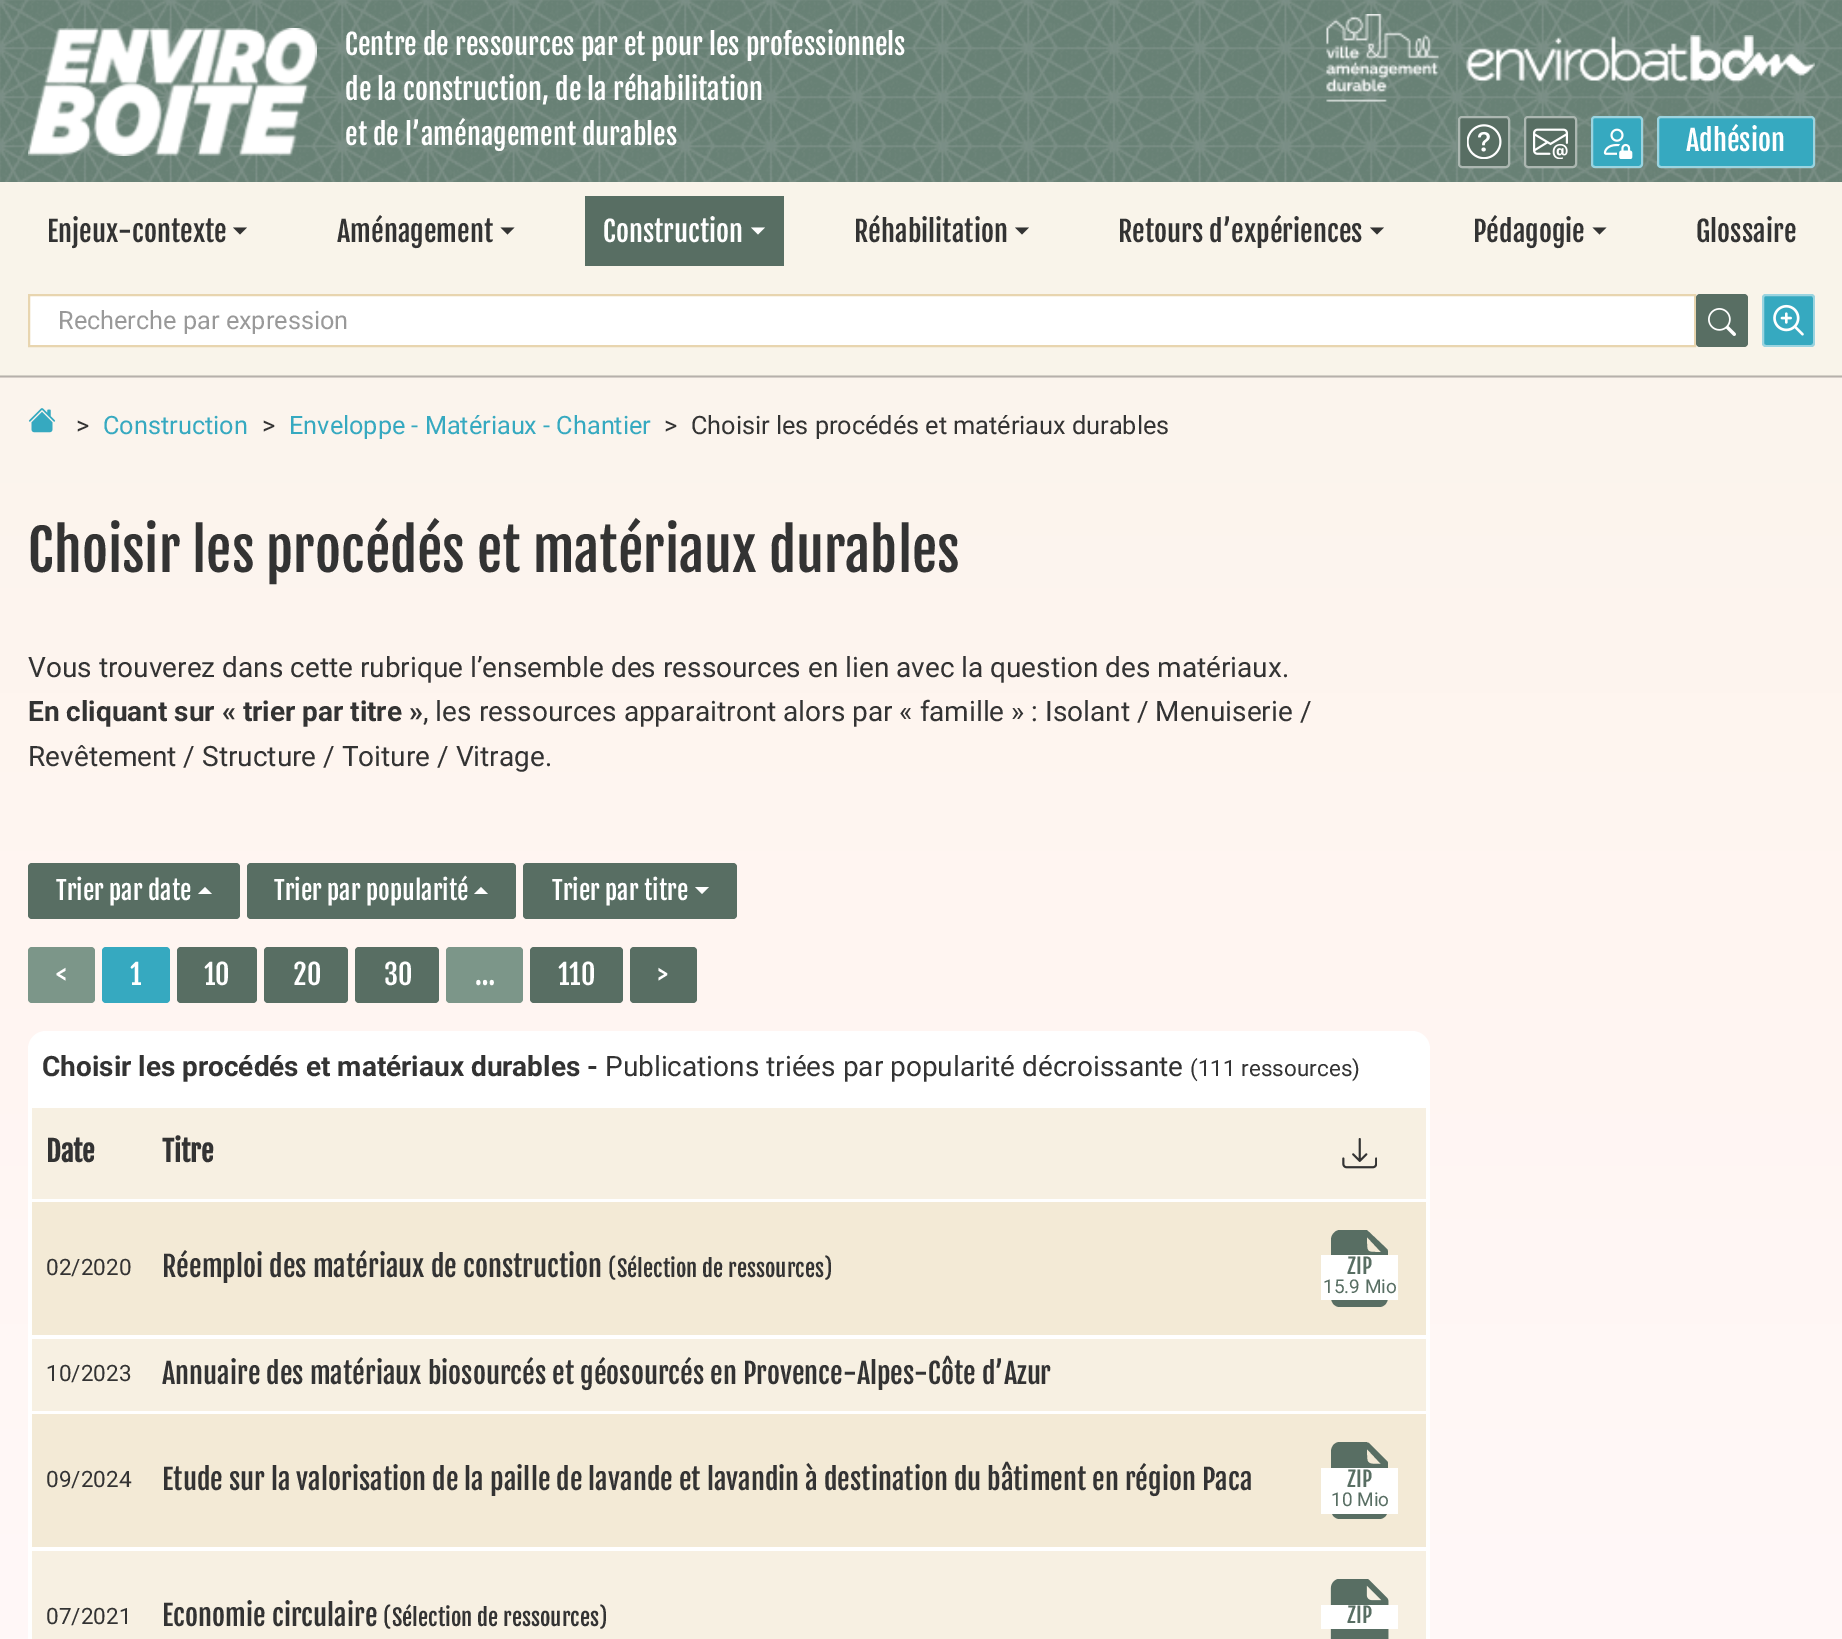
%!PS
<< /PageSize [1842 1639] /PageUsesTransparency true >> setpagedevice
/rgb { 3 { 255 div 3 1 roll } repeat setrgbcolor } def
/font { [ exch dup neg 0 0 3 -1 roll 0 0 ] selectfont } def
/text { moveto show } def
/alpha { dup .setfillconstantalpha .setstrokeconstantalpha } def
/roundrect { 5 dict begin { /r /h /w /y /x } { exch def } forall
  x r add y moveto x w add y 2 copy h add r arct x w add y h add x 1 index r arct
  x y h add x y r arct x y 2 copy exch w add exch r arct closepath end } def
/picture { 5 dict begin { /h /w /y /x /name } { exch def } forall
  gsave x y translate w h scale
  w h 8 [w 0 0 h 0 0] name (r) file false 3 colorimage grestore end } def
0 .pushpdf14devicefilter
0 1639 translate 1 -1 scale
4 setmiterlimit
255 255 255 rgb
0 0 1842 1639 rectfill
gsave 0 378 moveto 1842 0 rlineto 0 1261 rlineto -1842 0 rlineto closepath clip newpath
<< /ShadingType 2 /ColorSpace /DeviceRGB /Coords [921 0 921 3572] /Extend [true true] /Function << /FunctionType 3 /Domain [0 1] /Functions [<< /FunctionType 2 /Domain [0 1] /C0 [0.976 0.957 0.918] /C1 [1 0.961 0.945] /N 1 >> << /FunctionType 2 /Domain [0 1] /C0 [1 0.961 0.945] /C1 [1 0.973 0.976] /N 1 >> << /FunctionType 2 /Domain [0 1] /C0 [1 0.973 0.976] /C1 [0.996 0.988 0.992] /N 1 >> << /FunctionType 2 /Domain [0 1] /C0 [0.996 0.988 0.992] /C1 [1 1 1] /N 1 >>] /Bounds [0.25 0.5 0.75] /Encode [0 1 0 1 0 1 0 1] >> >> shfill grestore
104 129 117 rgb
0 0 1842 182 rectfill
(img_01.rgb) 0 0 1842 182 picture
(img_02.rgb) 28 28 289 128 picture
(img_03.rgb) 1326 14 113 88 picture
(img_04.rgb) 1466 35 349 48 picture
88 110 99 rgb
1458 116 52 52 4 roundrect fill
0.5 alpha
255 255 255 rgb
2 setlinewidth
1459 117 50 50 3 roundrect stroke
1 alpha
(img_05.rgb) 1467 124 35 35 picture
88 110 99 rgb
1524 116 53 52 4 roundrect fill
0.5 alpha
255 255 255 rgb
1525 117 51 50 3 roundrect stroke
1 alpha
(img_06.rgb) 1533 128 35 31 picture
54 169 192 rgb
1591 116 52 52 4 roundrect fill
0.5 alpha
255 255 255 rgb
1592 117 50 50 3 roundrect stroke
1 alpha
(img_07.rgb) 1603 128 30 31 picture
54 169 192 rgb
1657 116 158 52 4 roundrect fill
0.5 alpha
255 255 255 rgb
1658 117 156 50 3 roundrect stroke
1 alpha
249 244 234 rgb
0 182 1842 194 rectfill
214 207 201 rgb
0 376 1842 2 rectfill
0.15 alpha
0 0 0 rgb
0 375 1842 2 rectfill
1 alpha
51 51 51 rgb
233 227.5 moveto 14 0 rlineto -7 7 rlineto closepath fill
500.5 227.5 moveto 14 0 rlineto -7 7 rlineto closepath fill
88 110 99 rgb
585 196 199 70 rectfill
255 255 255 rgb
751 227.5 moveto 14 0 rlineto -7 7 rlineto closepath fill
51 51 51 rgb
1015 227.5 moveto 14 0 rlineto -7 7 rlineto closepath fill
1370 227.5 moveto 14 0 rlineto -7 7 rlineto closepath fill
1592.5 227.5 moveto 14 0 rlineto -7 7 rlineto closepath fill
255 255 255 rgb
29 295 moveto 1666 0 rlineto 0 51 rlineto -1666 0 rlineto closepath gsave fill grestore
232 213 175 rgb
stroke
88 110 99 rgb
1696 294 52 53 4 roundrect fill
(img_08.rgb) 1708 308 28 28 picture
54 169 192 rgb
1762 294 53 53 4 roundrect fill
0.5 alpha
255 255 255 rgb
1763 295 51 51 3 roundrect stroke
1 alpha
(img_09.rgb) 1773 304 31 32 picture
(img_10.rgb) 28 408 28 25 picture
88 110 99 rgb
28 863 212 56 4 roundrect fill
255 255 255 rgb
212 894 moveto -14 0 rlineto 7 -7 rlineto closepath fill
88 110 99 rgb
247 863 269 56 4 roundrect fill
255 255 255 rgb
488 894 moveto -14 0 rlineto 7 -7 rlineto closepath fill
88 110 99 rgb
523 863 214 56 4 roundrect fill
255 255 255 rgb
695 887 moveto 14 0 rlineto -7 7 rlineto closepath fill
124 150 137 rgb
28 947 67 56 4 roundrect fill
54 169 192 rgb
102 947 68 56 4 roundrect fill
88 110 99 rgb
177 947 80 56 4 roundrect fill
264 947 84 56 4 roundrect fill
355 947 84 56 4 roundrect fill
530 947 93 56 4 roundrect fill
630 947 67 56 4 roundrect fill
124 150 137 rgb
446 947 77 56 4 roundrect fill
255 255 255 rgb
28 1031 1402 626 18 roundrect fill
247 240 226 rgb
32 1108 1394 91 rectfill
(img_11.rgb) 1342 1138 35 31 picture
243 234 214 rgb
32 1202 1394 133 rectfill
88 110 99 rgb
1340 1230 moveto 26 0 rlineto 1 0 2 1 3 2 rcurveto 18 17 rlineto 1 1 1 3 1 4 rcurveto 0 44 rlineto 0 6 -4 10 -9 10 rcurveto -39 0 rlineto -5 0 -9 -4 -9 -10 rcurveto 0 -57 rlineto 0 -5 4 -10 9 -10 rcurveto closepath 1367 1237 moveto 0 16 -1 15 14 15 rcurveto closepath fill
255 255 255 rgb
1321 1255 77 45 rectfill
247 240 226 rgb
32 1339 1394 72 rectfill
243 234 214 rgb
32 1414 1394 133 rectfill
88 110 99 rgb
1340 1442 moveto 26 0 rlineto 1 0 2 1 3 1 rcurveto 18 18 rlineto 1 1 1 2 1 4 rcurveto 0 44 rlineto 0 6 -4 10 -9 10 rcurveto -39 0 rlineto -5 0 -9 -4 -9 -10 rcurveto 0 -57 rlineto 0 -6 4 -10 9 -10 rcurveto closepath 1367 1449 moveto 0 15 -1 15 14 15 rcurveto closepath fill
255 255 255 rgb
1321 1468 77 46 rectfill
247 240 226 rgb
32 1551 1394 88 rectfill
(img_12.rgb) 1330 1579 59 60 picture
255 255 255 rgb
1321 1605 77 24 rectfill
/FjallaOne-Regular 28 font
(Centre de ressources par et pour les professionnels) 345 55 text
(de la construction, de la réhabilitation) 345 100 text
(et de l’aménagement durables) 345 145 text
(Adhésion) 1686 151 text
51 51 51 rgb
(Enjeux-contexte) 47 242 text
(Aménagement) 337 242 text
255 255 255 rgb
(Construction) 603 242 text
51 51 51 rgb
(Réhabilitation) 854 242 text
(Retours d’expériences) 1118 242 text
(Pédagogie) 1473 242 text
(Glossaire) 1696 242 text
/Roboto-Regular 25.25 font
153 153 153 rgb
(Recherche par expression) 58 329 text
51 51 51 rgb
(>) 76 434 text
54 169 192 rgb
(Construction) 103 434 text
51 51 51 rgb
(>) 262 434 text
54 169 192 rgb
(Enveloppe - Matériaux - Chantier) 289 434 text
51 51 51 rgb
(>) 664 434 text
(Choisir les procédés et matériaux durables) 691 434 text
/FjallaOne-Regular 56 font
(Choisir les procédés et matériaux durables) 28 572 text
/Roboto-Regular 28 font
(Vous trouverez dans cette rubrique l’ensemble des ressources en lien avec la question des matériaux.) 28 677 text
/Roboto-Bold 28 font
(En cliquant sur « trier par titre ») 28 721 text
/Roboto-Regular 28 font
(, les ressources apparaitront alors par « famille » : Isolant / Menuiserie /) 423 721 text
(Revêtement / Structure / Toiture / Vitrage.) 28 766 text
/FjallaOne-Regular 25.25 font
255 255 255 rgb
(Trier par date) 56 900 text
(Trier par popularité) 274 900 text
(Trier par titre) 552 900 text
/FjallaOne-Regular 28 font
(<) 56 985 text
(1) 130 985 text
(10) 204 985 text
(20) 293 985 text
(30) 384 985 text
(110) 558 985 text
(>) 658 985 text
(…) 475 985 text
/Roboto-Bold 28 font
51 51 51 rgb
(Choisir les procédés et matériaux durables -) 42 1076 text
/Roboto-Regular 28 font
(Publications triées par popularité décroissante) 605 1076 text
/Roboto-Regular 22.5 font
(\(111 ressources\)) 1190 1076 text
/FjallaOne-Bold 28 font
(Date) 46 1162 text
(Titre) 162 1162 text
/Roboto-Regular 22.5 font
(02/2020) 46 1275 text
/FjallaOne-Regular 28 font
(Réemploi des matériaux de construction) 162 1277 text
/FjallaOne-Regular 22.5 font
(\(Sélection de ressources\)) 608 1277 text
/FjallaOne-Regular 21 font
88 110 99 rgb
(ZIP) 1347 1274 text
/Roboto-Regular 19 font
(15.9 Mio) 1323 1293 text
/Roboto-Regular 22.5 font
51 51 51 rgb
(10/2023) 46 1381 text
/FjallaOne-Regular 28 font
(Annuaire des matériaux biosourcés et géosourcés en Provence-Alpes-Côte d’Azur) 162 1384 text
/Roboto-Regular 22.5 font
(09/2024) 46 1487 text
/FjallaOne-Regular 28 font
(Etude sur la valorisation de la paille de lavande et lavandin à destination du bâtiment en région Paca) 162 1490 text
/FjallaOne-Regular 21 font
88 110 99 rgb
(ZIP) 1347 1487 text
/Roboto-Regular 19 font
(10 Mio) 1331 1506 text
/Roboto-Regular 22.5 font
51 51 51 rgb
(07/2021) 46 1624 text
/FjallaOne-Regular 28 font
(Economie circulaire) 162 1626 text
/FjallaOne-Regular 22.5 font
(\(Sélection de ressources\)) 383 1626 text
/FjallaOne-Regular 21 font
88 110 99 rgb
(ZIP) 1347 1623 text
.poppdf14devicefilter showpage
